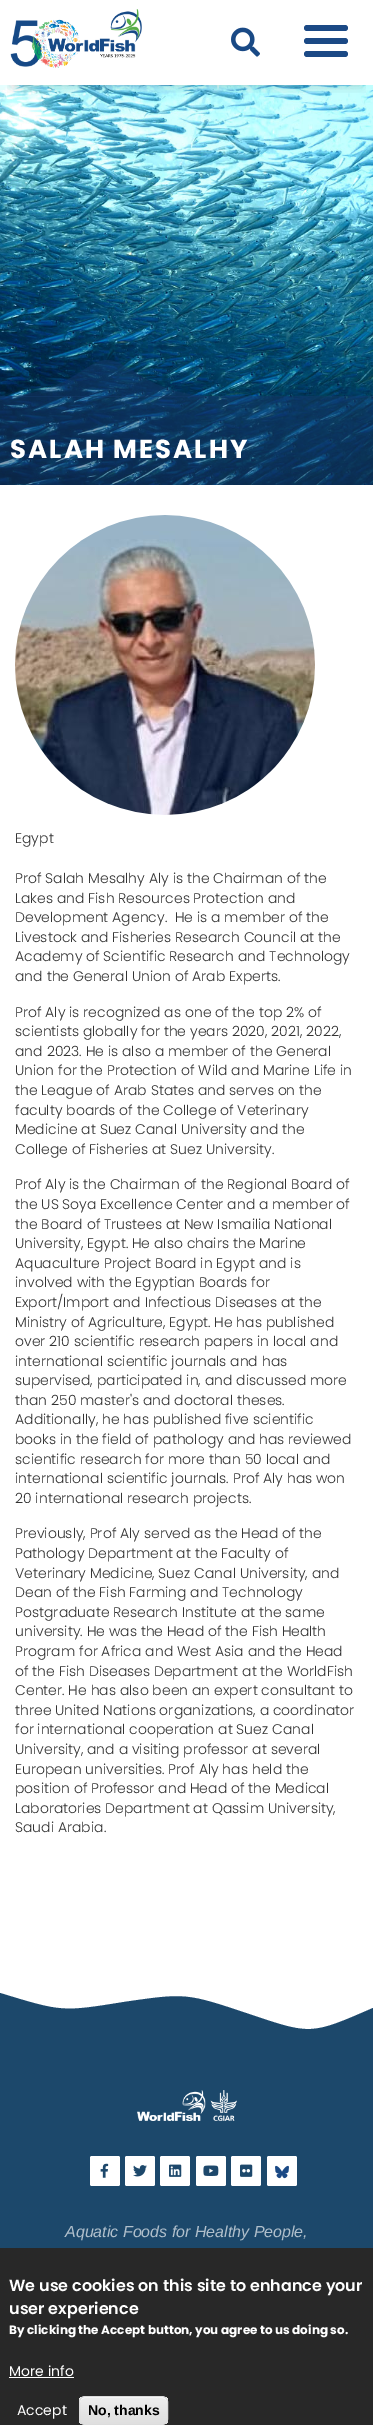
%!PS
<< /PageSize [373 2425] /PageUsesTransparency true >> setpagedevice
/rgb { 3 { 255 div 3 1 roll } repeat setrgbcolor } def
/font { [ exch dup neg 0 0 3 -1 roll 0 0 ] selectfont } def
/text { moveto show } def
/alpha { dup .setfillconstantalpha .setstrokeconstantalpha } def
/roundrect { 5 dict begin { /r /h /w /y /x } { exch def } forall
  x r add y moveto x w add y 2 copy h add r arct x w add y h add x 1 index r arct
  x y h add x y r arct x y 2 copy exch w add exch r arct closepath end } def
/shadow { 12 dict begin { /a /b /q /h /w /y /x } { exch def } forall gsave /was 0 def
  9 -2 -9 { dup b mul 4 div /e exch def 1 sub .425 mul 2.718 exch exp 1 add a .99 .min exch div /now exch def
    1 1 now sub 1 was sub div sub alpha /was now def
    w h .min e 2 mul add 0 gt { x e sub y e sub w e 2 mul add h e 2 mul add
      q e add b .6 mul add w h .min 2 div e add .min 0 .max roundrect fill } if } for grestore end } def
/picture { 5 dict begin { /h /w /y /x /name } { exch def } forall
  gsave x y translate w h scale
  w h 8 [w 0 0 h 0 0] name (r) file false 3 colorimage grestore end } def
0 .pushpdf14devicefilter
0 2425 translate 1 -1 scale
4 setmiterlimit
255 255 255 rgb
0 0 373 2425 rectfill
(img_03.rgb) 0 85 373 400 picture
gsave
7 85 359 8 rectclip
0 0 0 rgb
12 24 349 61 0 6 0.2 shadow
grestore
(img_01.rgb) 10 9 132 59 picture
(img_02.rgb) 231 27 29 30 picture
27 73 133 rgb
304 25 44 6 3 roundrect fill
304 38 44 6 3 roundrect fill
304 51 44 6 3 roundrect fill
0.5 alpha
20 57 105 rgb
0 396 373 89 rectfill
225 397 moveto -80 0 -94 -37 -118 -37 rcurveto -23 0 -37 37 -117 37 rcurveto closepath fill
1 alpha
(img_04.rgb) 15 515 300 300 picture
28 72 107 rgb
0 1993 moveto 62 19 62 19 124 9 rcurveto 62 -9 62 -9 125 12 rcurveto 62 21 62 21 124 -6 rcurveto 0 71 rlineto -373 0 rlineto closepath fill
0 2079 373 169 rectfill
(img_05.rgb) 137 2090 100 31 picture
255 255 255 rgb
90 2156 30 30 2 roundrect fill
(img_06.rgb) 100 2163 9 15 picture
125 2156 30 30 2 roundrect fill
(img_07.rgb) 133 2165 14 12 picture
160 2156 30 30 2 roundrect fill
(img_08.rgb) 169 2164 13 13 picture
196 2156 30 30 2 roundrect fill
(img_09.rgb) 203 2165 16 11 picture
231 2156 30 30 2 roundrect fill
(img_10.rgb) 240 2164 13 13 picture
267 2156 30 30 2 roundrect fill
(img_11.rgb) 275 2165 14 14 picture
40 40 40 rgb
0 2248 373 177 rectfill
255 255 255 rgb
9 2377 65 1 rectfill
gsave
79 2396 89 29 6 roundrect clip newpath
gsave 79 2397 moveto 89 0 rlineto 0 27 rlineto -89 0 rlineto closepath clip newpath
<< /ShadingType 2 /ColorSpace /DeviceRGB /Coords [124 2397 124 2424] /Extend [true true] /Function << /FunctionType 3 /Domain [0 1] /Functions [<< /FunctionType 2 /Domain [0 1] /C0 [0.929 0.929 0.929] /C1 [0.929 0.929 0.929] /N 1 >> << /FunctionType 2 /Domain [0 1] /C0 [0.929 0.929 0.929] /C1 [0.875 0.875 0.875] /N 1 >>] /Bounds [0.05] /Encode [0 1 0 1] >> >> shfill grestore
grestore
85 2398 moveto 77 0 rlineto 3 0 5 2 5 5 rcurveto 0 -9 -12 -6 -18 -6 rcurveto -51 0 rlineto -6 0 -18 -3 -18 6 rcurveto 0 -3 2 -5 5 -5 rcurveto closepath fill
220 220 220 rgb
79.5 2396.5 88 28 5.5 roundrect stroke
/Poppins-Bold 26 font
255 255 255 rgb
10 458 moveto 2 0 (SALAH MESALHY) ashow
/Poppins-Light 14 font
51 51 51 rgb
(Egypt) 15 843 text
(Prof Salah Mesalhy Aly is the Chairman of the) 15 883 text
(Lakes and Fish Resources Protection and) 15 903 text
(Development Agency.  He is a member of the) 15 922 text
(Livestock and Fisheries Research Council at the) 15 942 text
(Academy of Scientific Research and Technology) 15 961 text
(and the General Union of Arab Experts.) 15 981 text
(Prof Aly is recognized as one of the top 2% of) 15 1017 text
(scientists globally for the years 2020, 2021, 2022,) 15 1036 text
(and 2023. He is also a member of the General) 15 1056 text
(Union for the Protection of Wild and Marine Life in) 15 1075 text
(the League of Arab States and serves on the) 15 1095 text
(faculty boards of the College of Veterinary) 15 1115 text
(Medicine at Suez Canal University and the) 15 1134 text
(College of Fisheries at Suez University.) 15 1154 text
(Prof Aly is the Chairman of the Regional Board of) 15 1189 text
(the US Soya Excellence Center and a member of) 15 1209 text
(the Board of Trustees at New Ismailia National) 15 1229 text
(University, Egypt. He also chairs the Marine) 15 1248 text
(Aquaculture Project Board in Egypt and is) 15 1268 text
(involved with the Egyptian Boards for) 15 1287 text
(Export/Import and Infectious Diseases at the) 15 1307 text
(Ministry of Agriculture, Egypt. He has published) 15 1327 text
(over 210 scientific research papers in local and) 15 1346 text
(international scientific journals and has) 15 1366 text
(supervised, participated in, and discussed more) 15 1385 text
(than 250 master's and doctoral theses.) 15 1405 text
(Additionally, he has published five scientific) 15 1424 text
(books in the field of pathology and has reviewed) 15 1444 text
(scientific research for more than 50 local and) 15 1464 text
(international scientific journals. Prof Aly has won) 15 1483 text
(20 international research projects.) 15 1503 text
(Previously, Prof Aly served as the Head of the) 15 1538 text
(Pathology Department at the Faculty of) 15 1558 text
(Veterinary Medicine, Suez Canal University, and) 15 1578 text
(Dean of the Fish Farming and Technology) 15 1597 text
(Postgraduate Research Institute at the same) 15 1617 text
(university. He was the Head of the Fish Health) 15 1636 text
(Program for Africa and West Asia and the Head) 15 1656 text
(of the Fish Diseases Department at the WorldFish) 15 1676 text
(Center. He has also been an expert consultant to) 15 1695 text
(three United Nations organizations, a coordinator) 15 1715 text
(for international cooperation at Suez Canal) 15 1734 text
(University, and a visiting professor at several) 15 1754 text
(European universities. Prof Aly has held the) 15 1774 text
(position of Professor and Head of the Medical) 15 1793 text
(Laboratories Department at Qassim University,) 15 1813 text
(Saudi Arabia.) 15 1832 text
/LiberationSans-Italic 16 font
176 191 203 rgb
(Aquatic Foods for Healthy People,) 65 2237 text
/Poppins-SemiBold 16 font
255 255 255 rgb
(We use cookies on this site to enhance your) 9 2291 text
(user experience) 9 2314 text
/Poppins-Bold 12 font
(By clicking the Accept button, you agree to us doing so.) 9 2334 text
/Poppins-Regular 14 font
(More info) 9 2376 text
(Accept) 17 2415 text
/LiberationSans-Bold 14 font
0 0 0 rgb
(No, thanks) 88 2415 text
.poppdf14devicefilter showpage
